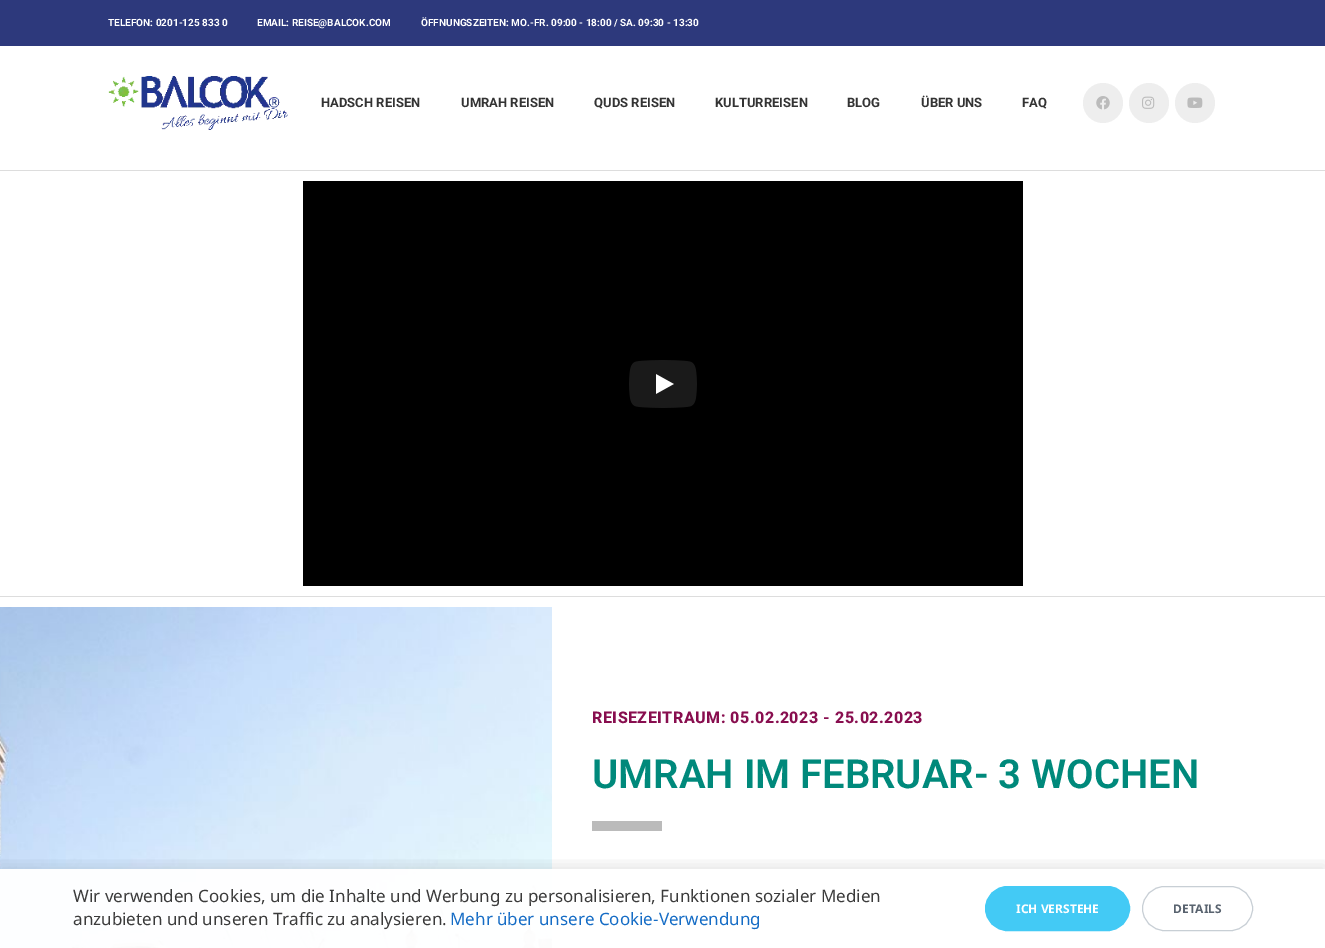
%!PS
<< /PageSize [1325 948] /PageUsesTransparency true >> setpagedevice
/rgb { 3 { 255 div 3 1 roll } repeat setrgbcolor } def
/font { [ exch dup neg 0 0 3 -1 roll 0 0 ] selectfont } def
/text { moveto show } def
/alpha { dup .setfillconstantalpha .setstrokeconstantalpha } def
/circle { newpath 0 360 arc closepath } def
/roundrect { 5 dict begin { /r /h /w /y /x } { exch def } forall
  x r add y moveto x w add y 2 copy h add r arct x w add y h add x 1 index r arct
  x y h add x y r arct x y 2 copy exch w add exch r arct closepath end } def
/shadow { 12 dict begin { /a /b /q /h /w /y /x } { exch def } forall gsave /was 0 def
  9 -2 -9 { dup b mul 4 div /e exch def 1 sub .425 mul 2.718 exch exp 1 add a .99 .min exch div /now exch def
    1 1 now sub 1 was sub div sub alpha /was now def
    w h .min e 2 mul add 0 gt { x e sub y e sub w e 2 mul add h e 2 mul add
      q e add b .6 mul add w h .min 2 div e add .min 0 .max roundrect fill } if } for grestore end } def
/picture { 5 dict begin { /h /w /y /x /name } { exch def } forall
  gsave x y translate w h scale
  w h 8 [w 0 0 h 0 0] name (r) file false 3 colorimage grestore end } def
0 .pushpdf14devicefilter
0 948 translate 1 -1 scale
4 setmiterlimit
255 255 255 rgb
0 0 1325 948 rectfill
45 57 124 rgb
0 0 1325 46 rectfill
(img_01.rgb) 108 76 180 54 picture
238 238 238 rgb
1103 103 20 circle fill
(img_02.rgb) 1096 96 14 14 picture
1149 103 20 circle fill
(img_03.rgb) 1142 96 13 13 picture
1195 103 20 circle fill
(img_04.rgb) 1187 97 16 11 picture
221 221 221 rgb
0 170 1325 1 rectfill
0 0 0 rgb
303 181 720 405 rectfill
(img_05.rgb) 629 360 68 48 picture
221 221 221 rgb
0 596 1325 1 rectfill
(img_06.rgb) 0 607 552 341 picture
187 187 187 rgb
592 821 70 10 rectfill
gsave
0 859 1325 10 rectclip
0 0 0 rgb
0 865 1325 79 0 7 0.1 shadow
grestore
0.96 alpha
255 255 255 rgb
0 869 552 79 rectfill
1 alpha
67 202 245 rgb
985.5 886.5 144 44 22 roundrect gsave fill grestore
stroke
200 207 213 rgb
1142.5 886.5 110 44 22 roundrect stroke
/Roboto-Bold 10 font
255 255 255 rgb
(TELEFON: 0201-125 833 0) 108 26 text
(EMAIL: REISE@BALCOK.COM) 257 26 text
(ÖFFNUNGSZEITEN: MO.-FR. 09:00 - 18:00 / SA. 09:30 - 13:30) 421 26 text
/Roboto-Bold 13 font
51 51 51 rgb
(HADSCH REISEN) 321 107 text
(UMRAH REISEN) 461 107 text
(QUDS REISEN) 594 107 text
(KULTURREISEN) 715 107 text
(BLOG) 847 107 text
(ÜBER UNS) 921 107 text
(FAQ) 1022 107 text
/Roboto-ExtraBold 16 font
136 14 79 rgb
592 723 moveto 0.5 0 (REISEZEITRAUM: 05.02.2023 - 25.02.2023) ashow
/Roboto-SemiBold 40 font
0 137 123 rgb
(UMRAH IM FEBRUAR- 3 WOCHEN) 592 788 text
/NotoSans-Regular 17 font
59 59 59 rgb
(Wir verwenden Cookies, um die Inhalte und Werbung zu personalisieren, Funktionen sozialer Medien) 73 902 text
(anzubieten und unseren Traffic zu analysieren.) 73 925 text
21 108 197 rgb
(Mehr über unsere Cookie-Verwendung) 450 925 text
/NotoSans-Bold 12 font
255 255 255 rgb
(ICH VERSTEHE) 1016 913 text
89 99 111 rgb
(DETAILS) 1173 913 text
.poppdf14devicefilter showpage
